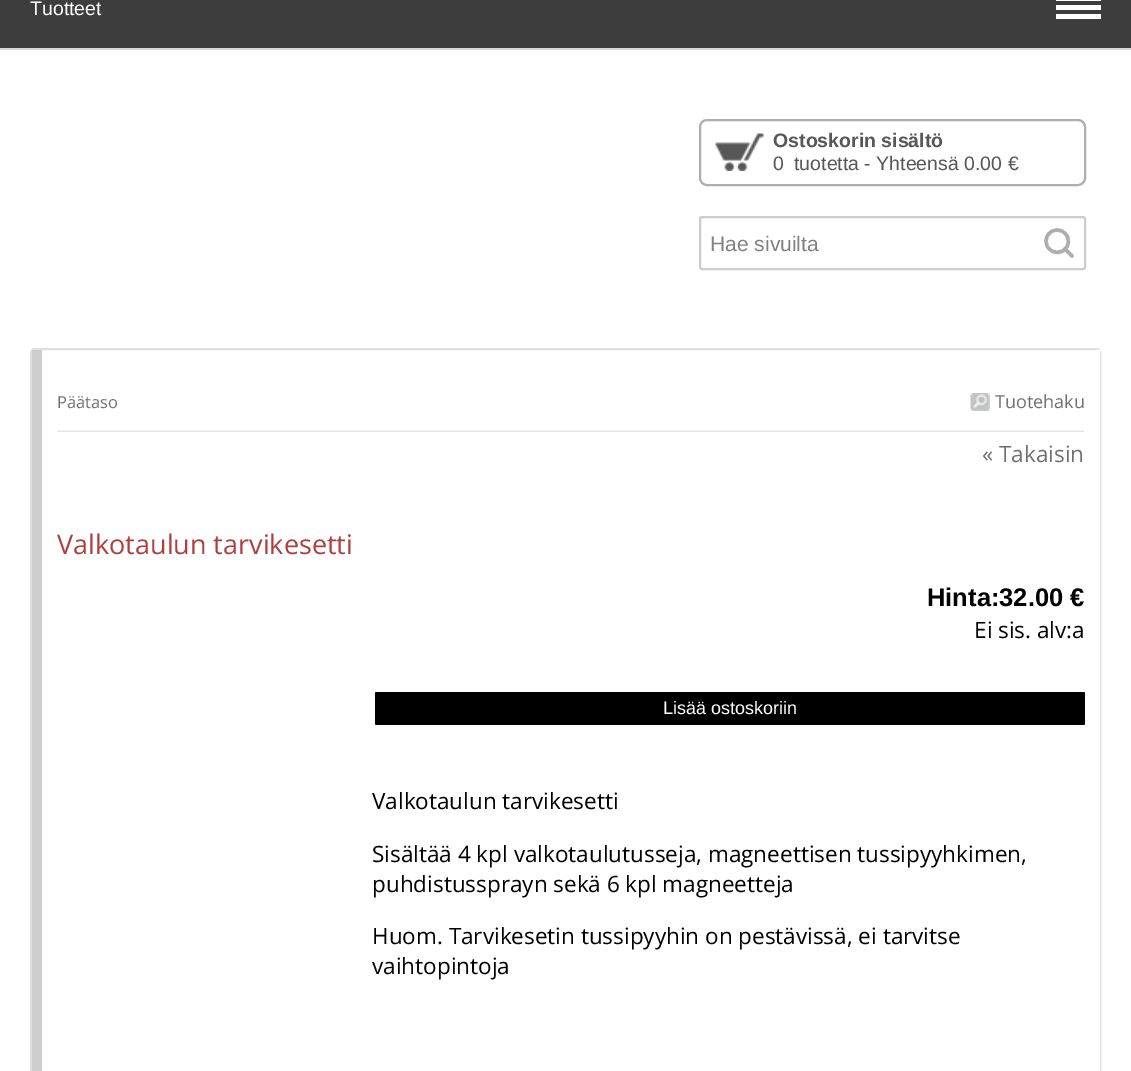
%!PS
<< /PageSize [1131 1071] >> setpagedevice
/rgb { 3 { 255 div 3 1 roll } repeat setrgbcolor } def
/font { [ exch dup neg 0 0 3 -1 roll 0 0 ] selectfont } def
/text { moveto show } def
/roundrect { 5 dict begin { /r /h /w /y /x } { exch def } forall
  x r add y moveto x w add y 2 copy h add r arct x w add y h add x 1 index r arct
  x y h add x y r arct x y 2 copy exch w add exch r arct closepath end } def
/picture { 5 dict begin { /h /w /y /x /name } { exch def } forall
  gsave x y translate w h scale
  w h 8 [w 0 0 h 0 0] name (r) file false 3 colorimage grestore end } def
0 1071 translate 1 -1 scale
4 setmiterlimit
255 255 255 rgb
0 0 1131 1071 rectfill
61 61 61 rgb
0 0 1131 48 rectfill
255 255 255 rgb
1056 0 45 1 rectfill
1056 5 45 5 rectfill
1056 14 45 5 rectfill
216 216 216 rgb
0 48 1131 2 rectfill
174 174 174 rgb
2 setlinewidth
700 120 385 65 7 roundrect stroke
(img_01.rgb) 715 133 49 38 picture
204 204 204 rgb
700 217 385 52 2 roundrect stroke
(img_02.rgb) 1044 228 30 30 picture
222 222 222 rgb
31 349 1069 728 4 roundrect stroke
255 255 255 rgb
1096 350 4 721 rectfill
206 204 204 rgb
32 350 10 721 rectfill
(img_03.rgb) 970 393 20 18 picture
(img_04.rgb) 57 430 1028 2 picture
0 0 0 rgb
375 692 710 33 1.5 roundrect fill
/LiberationSans-Regular 19.5 font
255 255 255 rgb
(Tuotteet) 30 15 text
/LiberationSans-Bold 19.5 font
87 87 87 rgb
(Ostoskorin sisältö) 773 147 text
/LiberationSans-Regular 19.5 font
(0) 773 170 text
(tuotetta - Yhteensä 0.00 €) 794 170 text
/LiberationSans-Regular 21 font
129 129 129 rgb
(Hae sivuilta) 710 251 text
/OpenSans-Regular 16.5 font
114 111 111 rgb
(Päätaso) 57 408 text
/OpenSans-Regular 18 font
(Tuotehaku) 995 408 text
/OpenSans-Regular 22.5 font
(« Takaisin) 982 462 text
/OpenSans-Regular 27 font
173 63 63 rgb
(Valkotaulun tarvikesetti) 57 554 text
/LiberationSans-Bold 25.5 font
0 0 0 rgb
(Hinta:32.00 €) 927 606 text
/OpenSans-Regular 22.5 font
(Ei sis. alv:a) 974 638 text
/LiberationSans-Regular 18 font
255 255 255 rgb
(Lisää ostoskoriin) 663 714 text
/OpenSans-Regular 22.5 font
0 0 0 rgb
(Valkotaulun tarvikesetti) 372 809 text
(Sisältää 4 kpl valkotaulutusseja, magneettisen tussipyyhkimen,) 372 862 text
(puhdistussprayn sekä 6 kpl magneetteja) 372 892 text
(Huom. Tarvikesetin tussipyyhin on pestävissä, ei tarvitse) 372 944 text
(vaihtopintoja) 372 974 text
showpage
